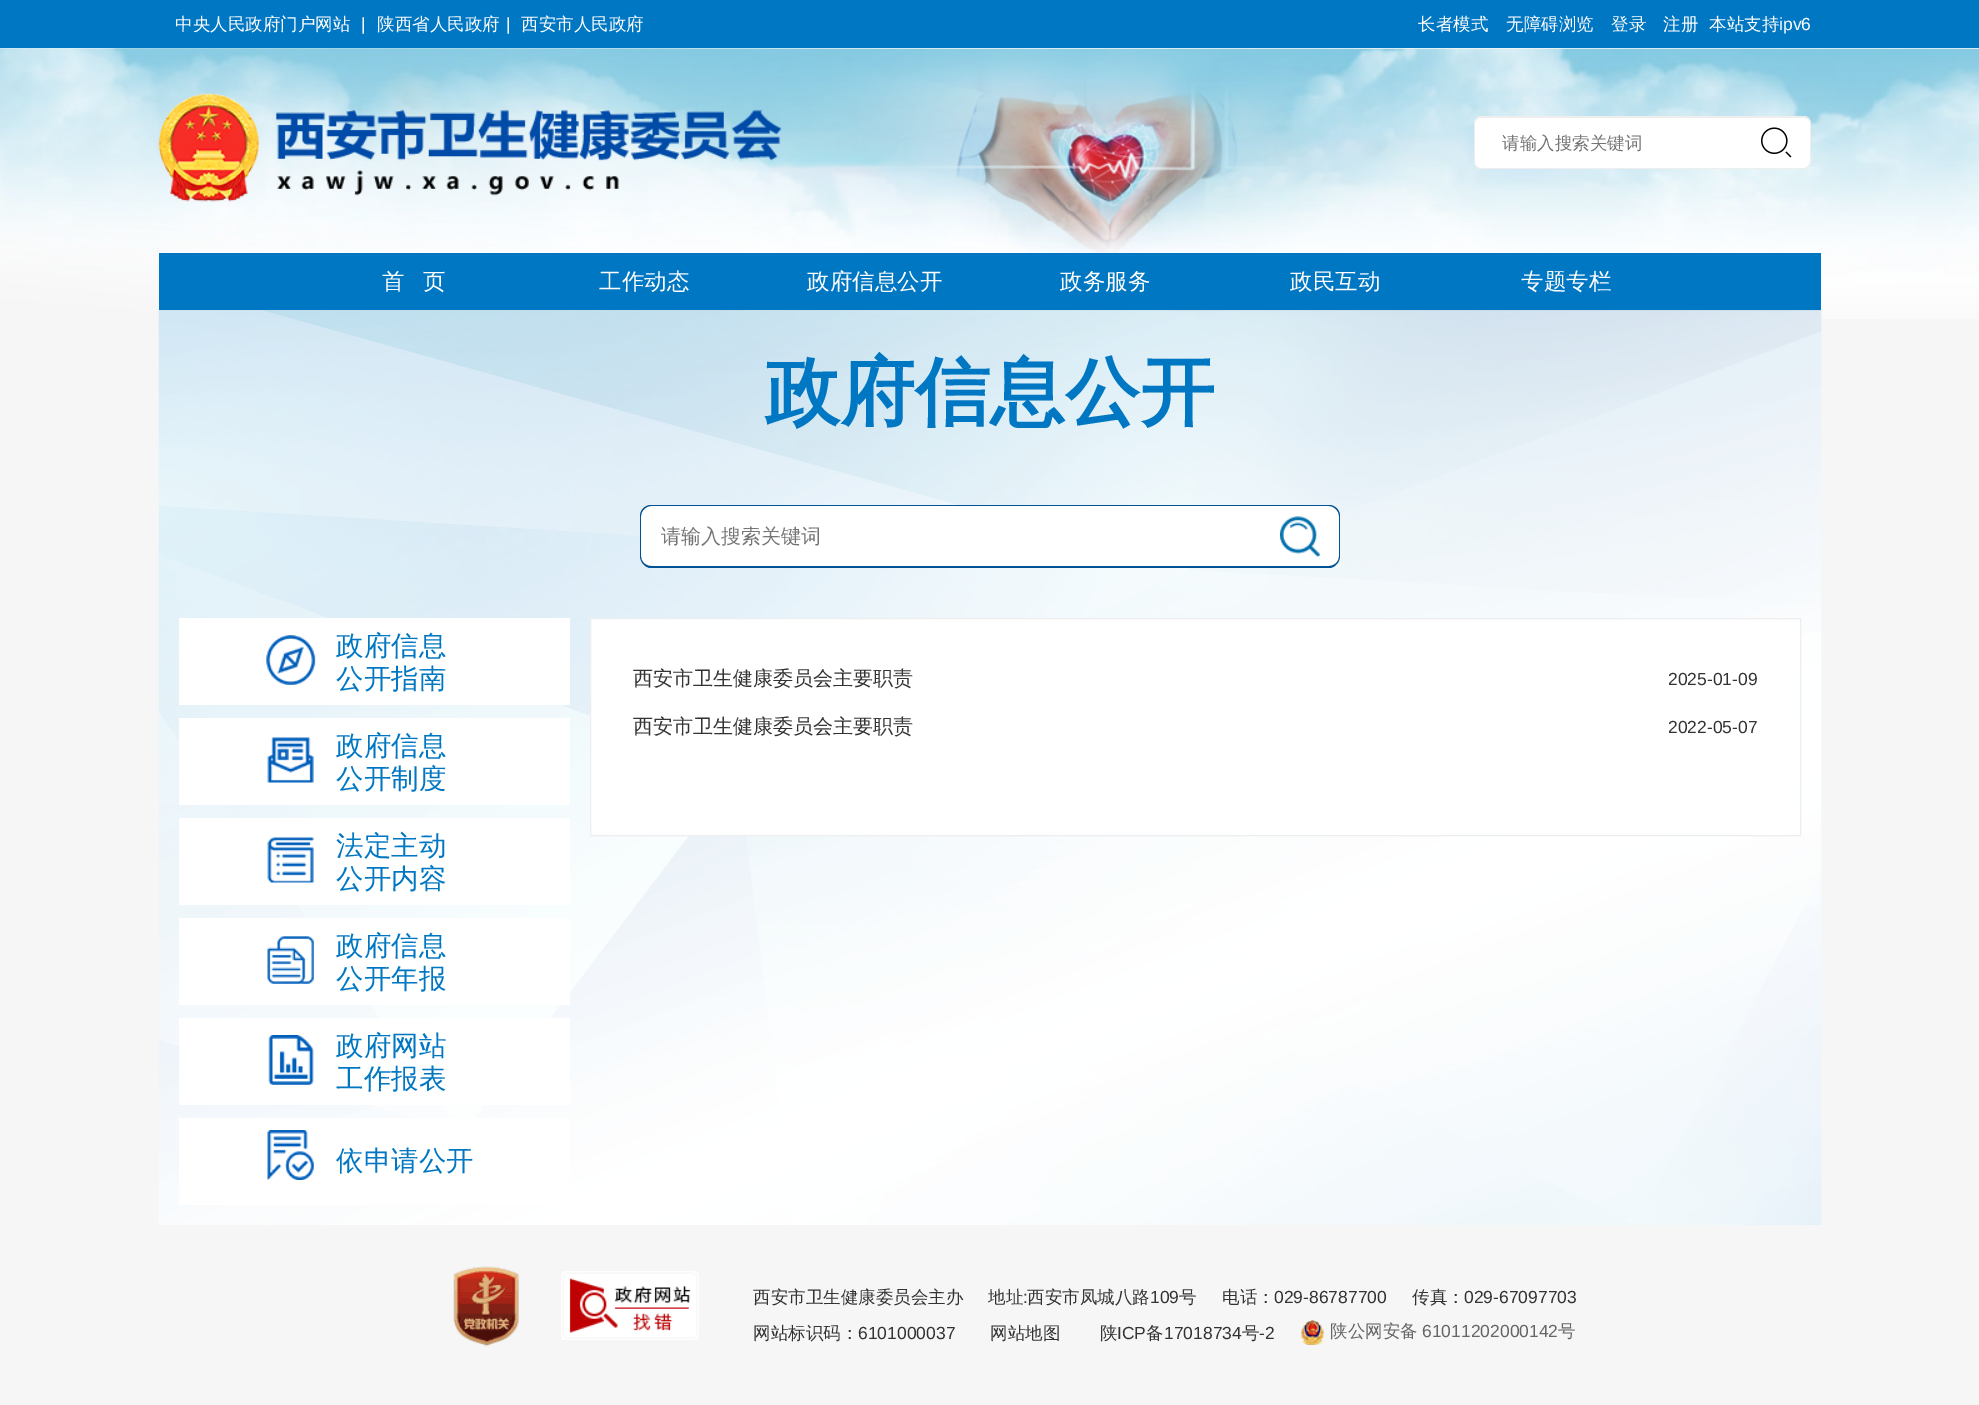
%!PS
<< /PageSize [1979 1405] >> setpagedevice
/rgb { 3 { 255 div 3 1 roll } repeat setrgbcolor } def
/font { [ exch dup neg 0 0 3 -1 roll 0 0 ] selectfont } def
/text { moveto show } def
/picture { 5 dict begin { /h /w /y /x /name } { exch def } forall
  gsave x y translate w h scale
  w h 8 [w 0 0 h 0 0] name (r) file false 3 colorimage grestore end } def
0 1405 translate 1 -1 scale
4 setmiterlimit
246 246 246 rgb
0 0 1979 1405 rectfill
(img_01.rgb) 0 48 1979 271 picture
0 119 194 rgb
0 0 1979 48 rectfill
(img_02.rgb) 158 93 624 109 picture
255 255 255 rgb
1482 116 moveto 262 0 rlineto 0 53 rlineto -262 0 rlineto -4.5 0 -8 -3.5 -8 -8 rcurveto 0 -37 rlineto 0 -4.5 3.5 -8 8 -8 rcurveto closepath fill
238 238 238 rgb
1481 116 moveto 263 0 rlineto 0 53 rlineto -263 0 rlineto -4 0 -7 -4 -7 -8 rcurveto 0 -37 rlineto 0 -4 3 -8 7 -8 rcurveto closepath 1481 118 moveto 263 0 rlineto 0 50 rlineto -263 0 rlineto -3 0 -6 -3 -6 -7 rcurveto 0 -37 rlineto 0 -4 3 -6 6 -6 rcurveto closepath eofill
255 255 255 rgb
1744 116 moveto 59 0 rlineto 4.5 0 8 3.5 8 8 rcurveto 0 37 rlineto 0 4.5 -3.5 8 -8 8 rcurveto -59 0 rlineto closepath fill
(img_03.rgb) 1761 127 31 31 picture
238 238 238 rgb
1744 116 moveto 60 0 rlineto 4 0 7 4 7 8 rcurveto 0 37 rlineto 0 4 -3 8 -7 8 rcurveto -60 0 rlineto closepath 1744 118 moveto 60 0 rlineto 3 0 6 2 6 6 rcurveto 0 37 rlineto 0 4 -3 7 -6 7 rcurveto -60 0 rlineto closepath eofill
0 119 194 rgb
159 253 1662 57 rectfill
(img_04.rgb) 158 310 1664 915 picture
255 255 255 rgb
651 505 moveto 609 0 rlineto 0 63 rlineto -609 0 rlineto -6 0 -11 -5 -11 -11 rcurveto 0 -41 rlineto 0 -6 5 -11 11 -11 rcurveto closepath fill
1 82 147 rgb
651 505 moveto 609 0 rlineto 0 63 rlineto -609 0 rlineto -6 0 -11 -6 -11 -12 rcurveto 0 -40 rlineto 0 -6 5 -11 11 -11 rcurveto closepath 651 506 moveto 609 0 rlineto 0 60 rlineto -609 0 rlineto -5 0 -10 -4 -10 -10 rcurveto 0 -40 rlineto 0 -5 5 -10 10 -10 rcurveto closepath eofill
255 255 255 rgb
1260 505 moveto 69 0 rlineto 6 0 11 5 11 11 rcurveto 0 41 rlineto 0 6 -5 11 -11 11 rcurveto -69 0 rlineto closepath fill
(img_05.rgb) 1280 516 40 41 picture
1 82 147 rgb
1260 505 moveto 69 0 rlineto 6 0 11 5 11 11 rcurveto 0 40 rlineto 0 6 -5 12 -11 12 rcurveto -69 0 rlineto closepath 1260 506 moveto 69 0 rlineto 5 0 10 5 10 10 rcurveto 0 40 rlineto 0 6 -5 10 -10 10 rcurveto -69 0 rlineto closepath eofill
255 255 255 rgb
179 618 391 87 rectfill
(img_06.rgb) 266 635 50 50 picture
179 718 391 87 rectfill
(img_07.rgb) 267 737 47 46 picture
179 818 391 87 rectfill
(img_08.rgb) 267 837 47 46 picture
179 918 391 87 rectfill
(img_09.rgb) 267 936 47 48 picture
179 1018 391 87 rectfill
(img_10.rgb) 268 1035 46 50 picture
179 1118 391 87 rectfill
(img_11.rgb) 267 1130 47 50 picture
590.5 618.5 moveto 1210 0 rlineto 0 217 rlineto -1210 0 rlineto closepath gsave fill grestore
238 238 238 rgb
stroke
(img_12.rgb) 453 1266 66 81 picture
(img_13.rgb) 561 1271 138 69 picture
(img_14.rgb) 1301 1320 23 25 picture
/WenQuanYiZenHei-Medium 17.5 font
255 255 255 rgb
(中央人民政府门户网站) 175 30 text
/LiberationSans-Regular 17.5 font
(|) 361 30 text
/WenQuanYiZenHei-Medium 17.5 font
(陕西省人民政府) 377 30 text
/LiberationSans-Regular 17.5 font
(|) 506 30 text
/WenQuanYiZenHei-Medium 17.5 font
(西安市人民政府) 521 30 text
(长者模式) 1418 30 text
(无障碍浏览) 1506 30 text
(登录) 1611 30 text
(注册) 1663 30 text
(本站支持) 1709 30 text
/LiberationSans-Regular 17.5 font
(ipv6) 1779 30 text
/WenQuanYiZenHei-Medium 17.5 font
117 117 117 rgb
(请输入搜索关键词) 1502 149 text
/WenQuanYiZenHei-Medium 22.5 font
255 255 255 rgb
(首) 382 289 text
(页) 423 289 text
(工作动态) 599 289 text
(政府信息公开) 807 289 text
(政务服务) 1060 289 text
(政民互动) 1290 289 text
(专题专栏) 1521 289 text
/WenQuanYiZenHei-Bold 75 font
0 119 194 rgb
(政府信息公开) 765 418 text
/WenQuanYiZenHei-Medium 20 font
117 117 117 rgb
(请输入搜索关键词) 661 543 text
/WenQuanYiZenHei-Medium 27.5 font
0 119 194 rgb
(政府信息) 336 655 text
(公开指南) 336 688 text
(政府信息) 336 755 text
(公开制度) 336 788 text
(法定主动) 336 855 text
(公开内容) 336 888 text
(政府信息) 336 955 text
(公开年报) 336 988 text
(政府网站) 336 1055 text
(工作报表) 336 1088 text
(依申请公开) 336 1170 text
/WenQuanYiZenHei-Medium 20 font
51 51 51 rgb
(西安市卫生健康委员会主要职责) 633 685 text
/LiberationSans-Regular 17.5 font
(2025-01-09) 1668 685 text
/WenQuanYiZenHei-Medium 20 font
(西安市卫生健康委员会主要职责) 633 733 text
/LiberationSans-Regular 17.5 font
(2022-05-07) 1668 733 text
/WenQuanYiZenHei-Medium 17.5 font
(西安市卫生健康委员会主办) 753 1303 text
(地址) 988 1303 text
/LiberationSans-Regular 17.5 font
(:) 1023 1303 text
/WenQuanYiZenHei-Medium 17.5 font
(西安市凤城八路) 1027 1303 text
/LiberationSans-Regular 17.5 font
(109) 1150 1303 text
/WenQuanYiZenHei-Medium 17.5 font
(号) 1179 1303 text
(电话：) 1222 1303 text
/LiberationSans-Regular 17.5 font
(029-86787700) 1274 1303 text
/WenQuanYiZenHei-Medium 17.5 font
(传真：) 1412 1303 text
/LiberationSans-Regular 17.5 font
(029-67097703) 1464 1303 text
/WenQuanYiZenHei-Medium 17.5 font
(网站标识码：) 753 1339 text
/LiberationSans-Regular 17.5 font
(6101000037) 858 1339 text
/WenQuanYiZenHei-Medium 17.5 font
(网站地图) 990 1339 text
(陕) 1100 1339 text
/LiberationSans-Regular 17.5 font
(ICP) 1117 1339 text
/WenQuanYiZenHei-Medium 17.5 font
(备) 1146 1339 text
/LiberationSans-Regular 17.5 font
(17018734) 1164 1339 text
/WenQuanYiZenHei-Medium 17.5 font
(号) 1242 1339 text
/LiberationSans-Regular 17.5 font
(-2) 1259 1339 text
/WenQuanYiZenHei-Medium 17.5 font
102 102 102 rgb
(陕公网安备) 1330 1337 text
/LiberationSans-Regular 17.5 font
(61011202000142) 1422 1337 text
/WenQuanYiZenHei-Medium 17.5 font
(号) 1558 1337 text
showpage
